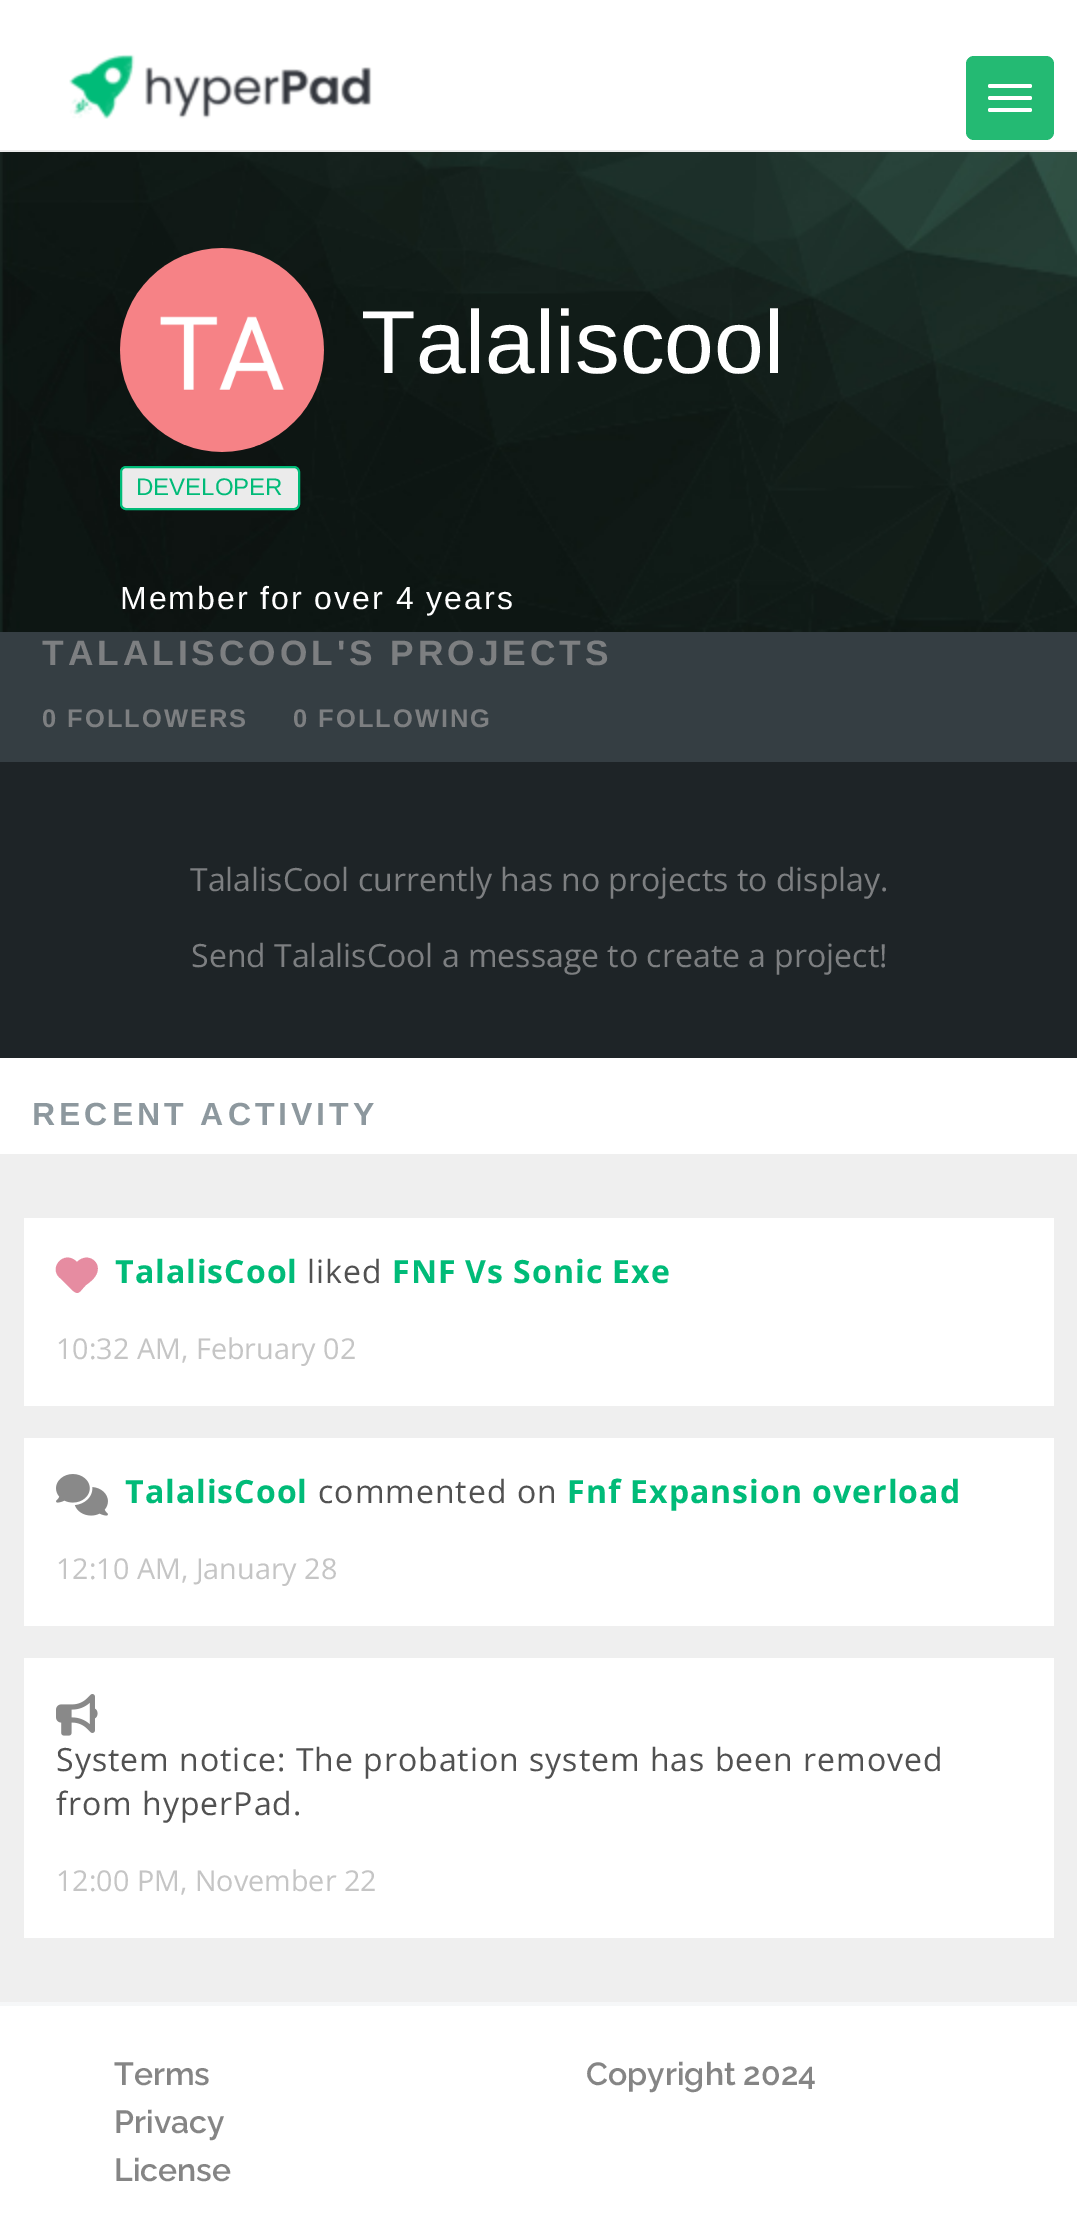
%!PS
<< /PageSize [1077 2217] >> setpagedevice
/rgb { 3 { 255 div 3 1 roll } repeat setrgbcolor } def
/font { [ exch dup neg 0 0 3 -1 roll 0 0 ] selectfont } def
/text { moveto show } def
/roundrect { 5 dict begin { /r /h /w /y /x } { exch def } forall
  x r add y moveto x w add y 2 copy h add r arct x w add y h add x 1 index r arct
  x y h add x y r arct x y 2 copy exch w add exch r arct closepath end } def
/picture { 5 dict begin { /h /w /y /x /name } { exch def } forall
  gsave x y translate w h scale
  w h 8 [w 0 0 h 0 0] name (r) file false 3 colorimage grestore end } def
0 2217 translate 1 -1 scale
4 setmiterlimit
255 255 255 rgb
0 0 1077 2217 rectfill
235 235 235 rgb
0 150 1077 2 rectfill
(img_01.rgb) 69 54 303 65 picture
36 186 115 rgb
966 56 88 84 8 roundrect fill
255 255 255 rgb
988 84 44 4 2 roundrect fill
988 96 44 4 2 roundrect fill
988 108 44 4 2 roundrect fill
(img_02.rgb) 0 152 1077 480 picture
(img_03.rgb) 120 248 204 204 picture
235 235 235 rgb
121 467 178 42 5 roundrect gsave fill grestore
0 187 120 rgb
2 setlinewidth
stroke
53 62 67 rgb
0 632 1077 130 rectfill
30 36 39 rgb
0 762 1077 296 rectfill
239 239 239 rgb
0 1154 1077 848 rectfill
255 255 255 rgb
24 1218 1030 188 rectfill
230 140 161 rgb
60 1278 moveto 12 12 rlineto 7 6 7 2 14 -5 rcurveto 4 -3 8 -6 10 -10 rcurveto 7 -12 -8 -24 -19 -13 rcurveto -13 -13 -29 6 -17 16 rcurveto closepath fill
255 255 255 rgb
24 1438 1030 188 rectfill
(img_04.rgb) 56 1474 52 42 picture
24 1658 1030 280 rectfill
(img_05.rgb) 56 1694 42 42 picture
246 247 248 rgb
0 2002 1077 4 rectfill
/LiberationSans-Regular 89.5 font
255 255 255 rgb
(Talaliscool) 361 373 text
/LiberationSans-Regular 24 font
0 187 120 rgb
(DEVELOPER) 136 495 text
/LiberationSans-Regular 32 font
255 255 255 rgb
120 609 moveto 2 0 (Member for over 4 years) ashow
/LiberationSans-Bold 35.25 font
125 127 129 rgb
42 665 moveto 4 0 (TALALISCOOL'S PROJECTS) ashow
/LiberationSans-Bold 25.5 font
42 727 moveto 2 0 (0 FOLLOWERS) ashow
293 727 moveto 2 0 (0 FOLLOWING) ashow
/OpenSans-Regular 32 font
(TalalisCool currently has no projects to display.) 190 891 text
(Send TalalisCool a message to create a project!) 191 967 text
/LiberationSans-Bold 32 font
141 152 158 rgb
32 1125 moveto 4 0 (RECENT ACTIVITY) ashow
/OpenSans-Bold 32 font
0 187 120 rgb
115 1283 moveto 1 0 (TalalisCool) ashow
/OpenSans-Regular 32 font
81 81 81 rgb
307 1283 moveto 1 0 (liked) ashow
/OpenSans-Bold 32 font
0 187 120 rgb
392 1283 moveto 1 0 (FNF Vs Sonic Exe) ashow
/OpenSans-Regular 28.75 font
197 197 197 rgb
(10:32 AM, February 02) 56 1359 text
/OpenSans-Bold 32 font
0 187 120 rgb
125 1503 moveto 1 0 (TalalisCool) ashow
/OpenSans-Regular 32 font
81 81 81 rgb
318 1503 moveto 1 0 (commented on) ashow
/OpenSans-Bold 32 font
0 187 120 rgb
567 1503 moveto 1 0 (Fnf Expansion overload) ashow
/OpenSans-Regular 28.75 font
197 197 197 rgb
(12:10 AM, January 28) 56 1579 text
/OpenSans-Regular 32 font
81 81 81 rgb
56 1771 moveto 1 0 (System notice: The probation system has been removed) ashow
56 1815 moveto 1 0 (from hyperPad.) ashow
/OpenSans-Regular 28.75 font
197 197 197 rgb
(12:00 PM, November 22) 56 1891 text
/Raleway-SemiBold 32 font
133 133 133 rgb
(Terms) 114 2085 text
(Privacy) 114 2133 text
(License) 114 2181 text
(Copyright 2024) 586 2085 text
showpage
